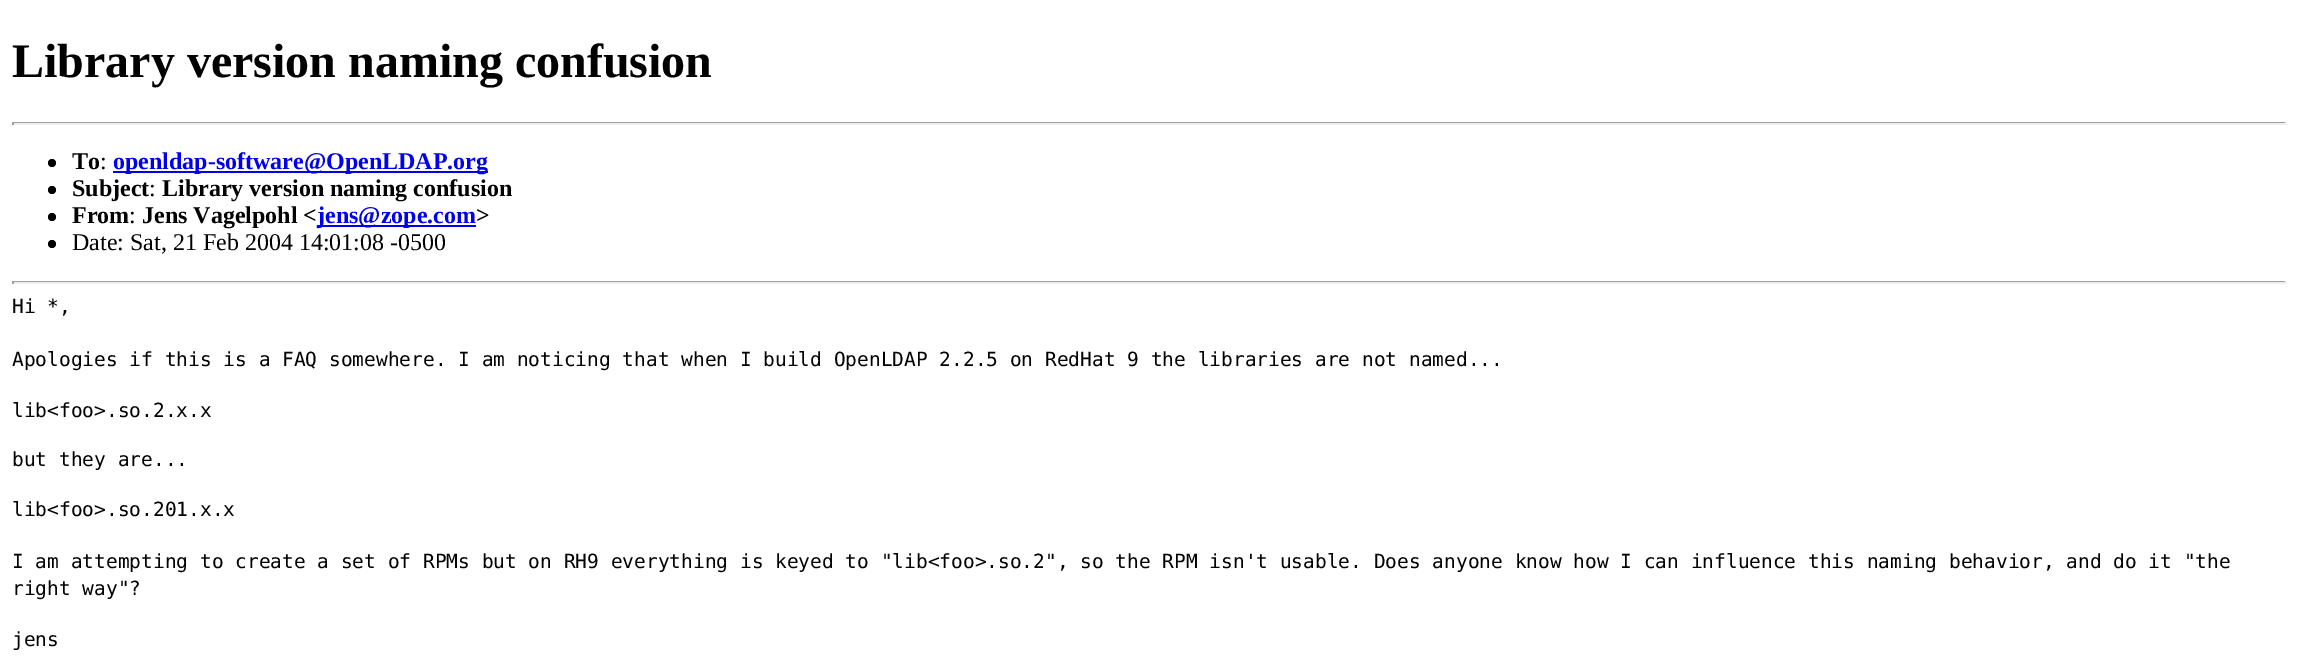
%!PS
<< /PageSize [2297 663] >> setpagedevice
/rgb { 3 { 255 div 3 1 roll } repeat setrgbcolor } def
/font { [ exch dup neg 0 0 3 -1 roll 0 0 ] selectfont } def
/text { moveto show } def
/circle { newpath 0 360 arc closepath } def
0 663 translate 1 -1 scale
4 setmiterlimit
255 255 255 rgb
0 0 2297 663 rectfill
159 159 159 rgb
12 122 2274 1 rectfill
238 238 238 rgb
2285 122 2 3 rectfill
12 123 2274 2 rectfill
159 159 159 rgb
12 122 2 3 rectfill
0 0 0 rgb
52 163 4 circle fill
0 0 238 rgb
113 171 375 2 rectfill
0 0 0 rgb
52 190 4 circle fill
52 217 4 circle fill
0 0 238 rgb
317 225 159 2 rectfill
0 0 0 rgb
52 244 4 circle fill
159 159 159 rgb
12 281 2274 1 rectfill
238 238 238 rgb
2285 281 2 3 rectfill
12 282 2274 2 rectfill
159 159 159 rgb
12 281 2 3 rectfill
/LiberationSerif-Bold 48 font
0 0 0 rgb
(Library version naming confusion) 12 77 text
/LiberationSerif-Bold 24 font
(To) 72 169 text
/LiberationSerif-Regular 24 font
(:) 100 169 text
/LiberationSerif-Bold 24 font
0 0 238 rgb
(openldap-software@OpenLDAP.org) 113 169 text
0 0 0 rgb
(Subject) 72 196 text
/LiberationSerif-Regular 24 font
(:) 149 196 text
/LiberationSerif-Bold 24 font
(Library version naming confusion) 162 196 text
(From) 72 223 text
/LiberationSerif-Regular 24 font
(:) 129 223 text
/LiberationSerif-Bold 24 font
(Jens Vagelpohl <) 142 223 text
0 0 238 rgb
(jens@zope.com) 317 223 text
0 0 0 rgb
(>) 476 223 text
/LiberationSerif-Regular 24 font
(Date: Sat, 21 Feb 2004 14:01:08 -0500) 72 250 text
/DejaVuSansMono-Regular 19.5 font
(Hi *,) 12 313 text
(Apologies if this is a FAQ somewhere. I am noticing that when I build OpenLDAP 2.2.5 on RedHat 9 the libraries are not named...) 12 366 text
(lib<foo>.so.2.x.x) 12 417 text
(but they are...) 12 466 text
(lib<foo>.so.201.x.x) 12 516 text
(I am attempting to create a set of RPMs but on RH9 everything is keyed to "lib<foo>.so.2", so the RPM isn't usable. Does anyone know how I can influence this naming behavior, and do it "the) 12 568 text
(right way"?) 12 595 text
(jens) 12 646 text
showpage
